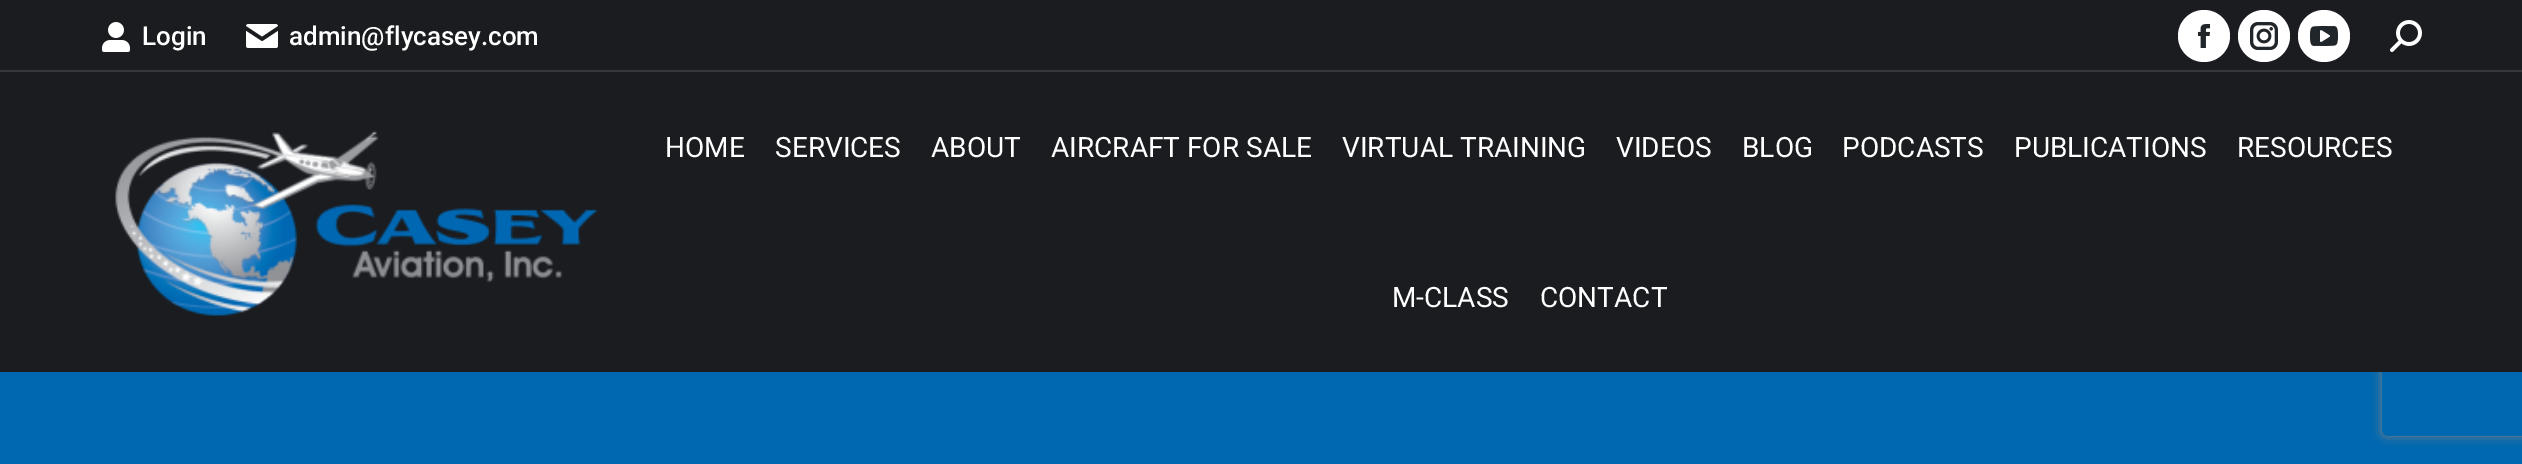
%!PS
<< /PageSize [2522 464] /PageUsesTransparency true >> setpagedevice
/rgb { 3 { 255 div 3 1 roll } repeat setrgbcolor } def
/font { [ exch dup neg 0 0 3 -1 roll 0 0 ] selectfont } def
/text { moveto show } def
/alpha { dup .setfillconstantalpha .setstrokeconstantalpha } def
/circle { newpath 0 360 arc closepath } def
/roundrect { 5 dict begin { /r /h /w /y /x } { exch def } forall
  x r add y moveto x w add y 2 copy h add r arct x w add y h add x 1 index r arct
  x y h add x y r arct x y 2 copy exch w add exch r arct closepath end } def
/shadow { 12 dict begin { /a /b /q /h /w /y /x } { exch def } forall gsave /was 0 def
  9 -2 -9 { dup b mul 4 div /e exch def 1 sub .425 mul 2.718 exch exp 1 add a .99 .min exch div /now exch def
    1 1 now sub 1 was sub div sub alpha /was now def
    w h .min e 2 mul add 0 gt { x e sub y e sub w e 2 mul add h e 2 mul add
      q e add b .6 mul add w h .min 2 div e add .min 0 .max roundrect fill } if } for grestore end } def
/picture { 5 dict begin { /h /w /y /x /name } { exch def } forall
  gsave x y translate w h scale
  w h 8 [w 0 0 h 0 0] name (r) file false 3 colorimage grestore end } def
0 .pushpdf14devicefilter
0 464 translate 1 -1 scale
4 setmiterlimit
0 103 177 rgb
0 0 2522 464 rectfill
gsave
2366 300 moveto 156 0 rlineto 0 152 rlineto -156 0 rlineto closepath 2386 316 moveto 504 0 rlineto 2 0 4 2 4 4 rcurveto 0 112 rlineto 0 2 -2 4 -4 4 rcurveto -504 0 rlineto -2 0 -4 -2 -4 -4 rcurveto 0 -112 rlineto 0 -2 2 -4 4 -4 rcurveto closepath eoclip newpath
128 128 128 rgb
2382 316 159 120 4 5 1 shadow
grestore
26 28 32 rgb
0 0 2522 372 rectfill
(img_01.rgb) 102 22 28 30 picture
(img_02.rgb) 246 24 32 24 picture
255 255 255 rgb
2204 36 26 circle fill
(img_03.rgb) 2197 24 14 24 picture
2264 36 26 circle fill
(img_04.rgb) 2250 22 28 28 picture
2324 36 26 circle fill
(img_05.rgb) 2310 26 28 20 picture
(img_06.rgb) 2390 20 32 32 picture
53 55 59 rgb
0 70 2522 2 rectfill
(img_07.rgb) 115 130 483 187 picture
/Roboto-Medium 26 font
255 255 255 rgb
(Login) 142 45 text
(admin@flycasey.com) 289 45 text
/Roboto-Regular 28 font
(HOME) 665 157 text
(SERVICES) 775 157 text
(ABOUT) 931 157 text
(AIRCRAFT FOR SALE) 1051 157 text
(VIRTUAL TRAINING) 1342 157 text
(VIDEOS) 1616 157 text
(BLOG) 1742 157 text
(PODCASTS) 1842 157 text
(PUBLICATIONS) 2014 157 text
(RESOURCES) 2237 157 text
(M-CLASS) 1392 307 text
(CONTACT) 1540 307 text
.poppdf14devicefilter showpage
